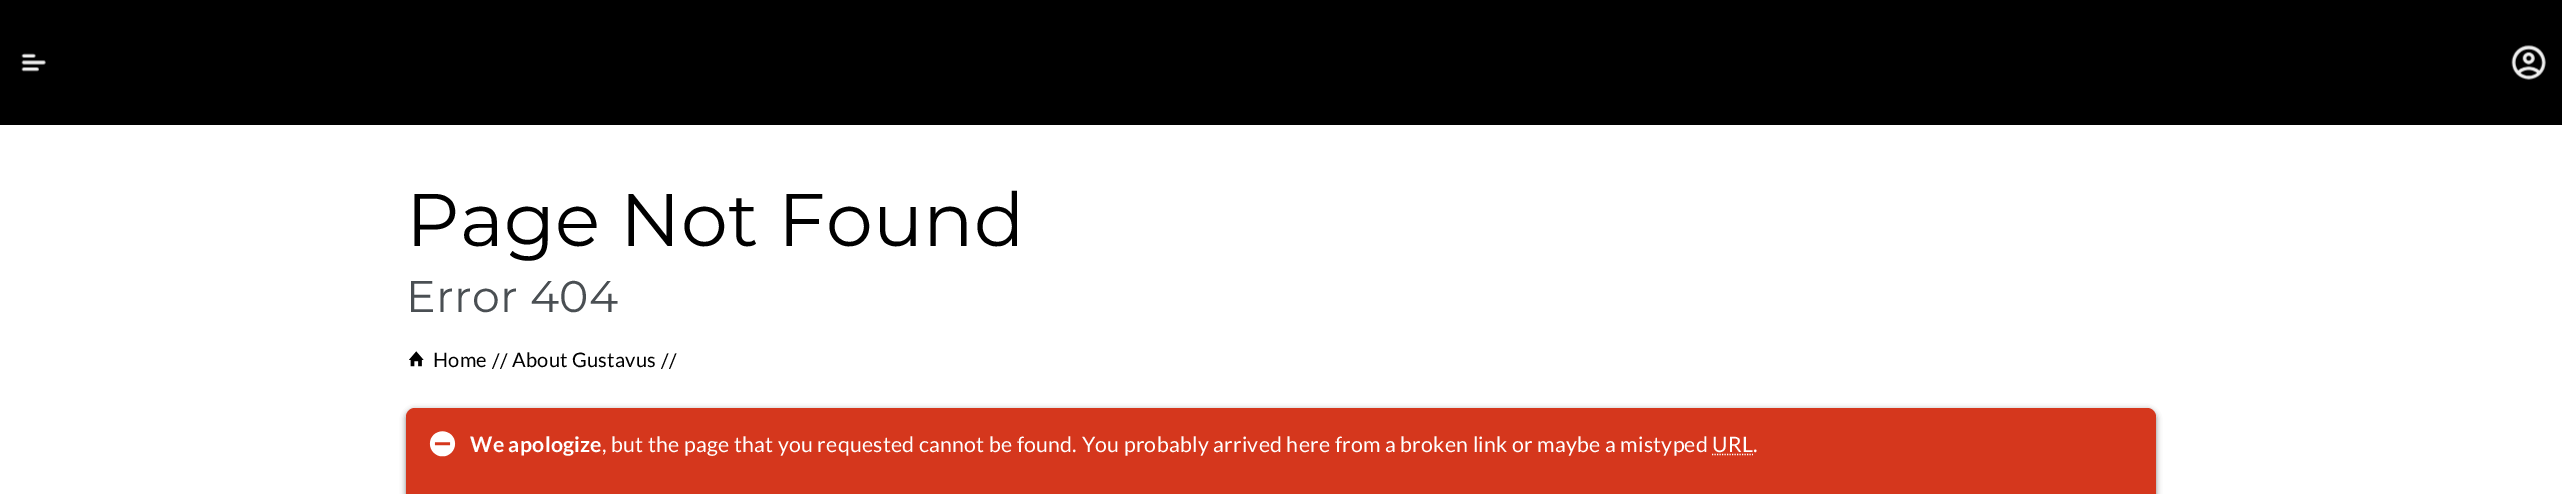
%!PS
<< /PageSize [2562 494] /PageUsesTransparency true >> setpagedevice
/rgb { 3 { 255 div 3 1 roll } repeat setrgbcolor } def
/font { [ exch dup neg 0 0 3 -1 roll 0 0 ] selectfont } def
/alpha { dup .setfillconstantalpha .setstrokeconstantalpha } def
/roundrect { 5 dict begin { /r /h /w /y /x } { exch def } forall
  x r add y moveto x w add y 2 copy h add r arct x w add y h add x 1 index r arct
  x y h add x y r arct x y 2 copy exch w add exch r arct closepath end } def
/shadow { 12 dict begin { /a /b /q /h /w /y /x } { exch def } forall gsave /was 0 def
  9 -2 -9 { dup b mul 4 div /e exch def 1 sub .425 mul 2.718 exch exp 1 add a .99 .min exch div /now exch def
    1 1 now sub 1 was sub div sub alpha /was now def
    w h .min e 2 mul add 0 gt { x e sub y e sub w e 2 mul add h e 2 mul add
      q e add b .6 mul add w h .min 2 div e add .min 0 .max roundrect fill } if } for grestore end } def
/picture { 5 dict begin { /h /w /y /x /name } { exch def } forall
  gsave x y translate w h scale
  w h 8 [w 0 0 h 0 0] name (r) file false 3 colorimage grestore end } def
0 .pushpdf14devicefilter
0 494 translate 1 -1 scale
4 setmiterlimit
255 255 255 rgb
0 0 2562 494 rectfill
0 0 0 rgb
0 0 2562 125 rectfill
(img_01.rgb) 21 53 25 19 picture
(img_02.rgb) 2511 45 35 35 picture
(img_03.rgb) 409 351 15 16 picture
406 410 1750 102 9 3 0.5 shadow
213 55 29 rgb
406 408 1750 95 9 roundrect fill
(img_04.rgb) 429 431 27 26 picture
255 255 255 rgb
1.2 setlinewidth
[1.25 1.25] 0 setdash
1712 454.5 moveto 41 0 rlineto stroke
/Montserrat-Regular 74.5 font
0 0 0 rgb
406 246 moveto 0.25 0 (Page Not Found) ashow
/Montserrat-Regular 44.25 font
74 79 83 rgb
406 312 moveto 0.25 0 (Error 404) ashow
/Lato-Regular 20 font
0 0 0 rgb
433 367 moveto 0.25 0 (Home) ashow
492 368 moveto 0.25 0 (//) ashow
512 367 moveto 0.25 0 (About Gustavus) ashow
661 368 moveto 0.25 0 (//) ashow
/Lato-Bold 21.28 font
255 255 255 rgb
470 452 moveto 0.25 0 (We apologize) ashow
/Lato-Regular 21.28 font
602 452 moveto 0.25 0 (, but the page that you requested cannot be found. You probably arrived here from a broken link or maybe a mistyped URL.) ashow
.poppdf14devicefilter showpage
